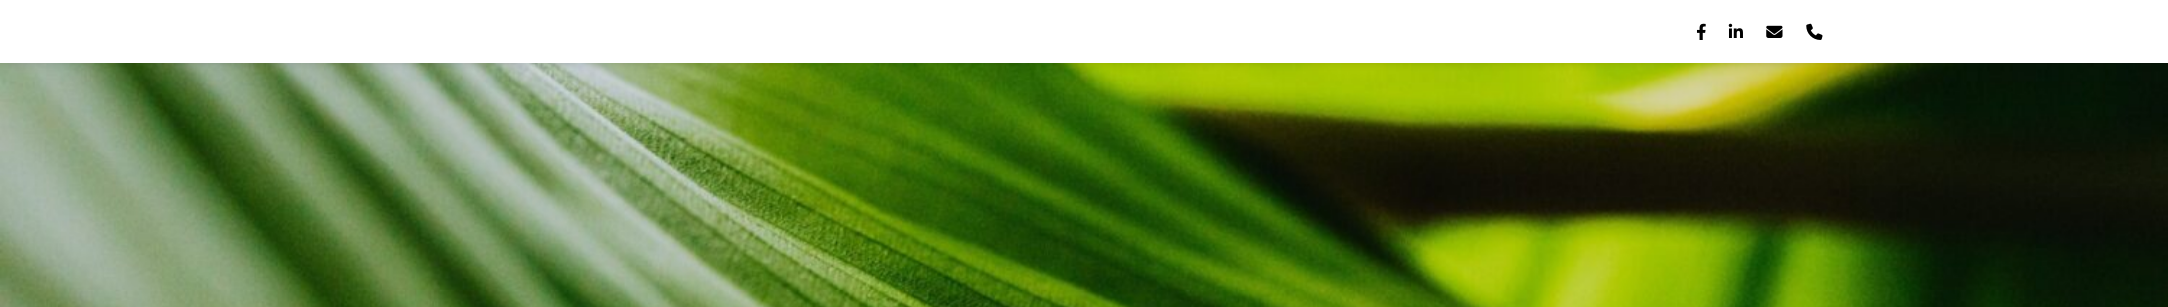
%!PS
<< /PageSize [2168 307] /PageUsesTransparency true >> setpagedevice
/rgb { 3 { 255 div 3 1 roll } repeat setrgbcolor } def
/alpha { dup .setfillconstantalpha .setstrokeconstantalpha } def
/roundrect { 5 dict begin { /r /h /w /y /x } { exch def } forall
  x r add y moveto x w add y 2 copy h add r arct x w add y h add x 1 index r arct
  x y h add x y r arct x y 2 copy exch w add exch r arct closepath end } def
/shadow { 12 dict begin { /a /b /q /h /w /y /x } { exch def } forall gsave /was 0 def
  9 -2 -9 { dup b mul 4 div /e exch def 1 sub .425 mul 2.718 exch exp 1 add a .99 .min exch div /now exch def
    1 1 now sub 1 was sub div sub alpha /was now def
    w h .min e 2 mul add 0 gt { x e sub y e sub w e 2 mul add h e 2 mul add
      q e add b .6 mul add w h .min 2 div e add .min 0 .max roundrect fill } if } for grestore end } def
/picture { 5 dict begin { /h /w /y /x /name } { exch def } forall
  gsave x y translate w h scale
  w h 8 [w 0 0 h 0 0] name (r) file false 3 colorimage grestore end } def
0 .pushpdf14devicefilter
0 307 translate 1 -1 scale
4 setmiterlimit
255 255 255 rgb
0 0 2168 307 rectfill
(img_05.rgb) 0 63 2168 244 picture
0 0 0 rgb
0 1 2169 63 0 3 0.1 shadow
255 255 255 rgb
0 0 2168 63 rectfill
(img_01.rgb) 1696 23 10 17 picture
(img_02.rgb) 1728 23 15 15 picture
(img_03.rgb) 1766 25 17 13 picture
(img_04.rgb) 1806 23 17 17 picture
.poppdf14devicefilter showpage
